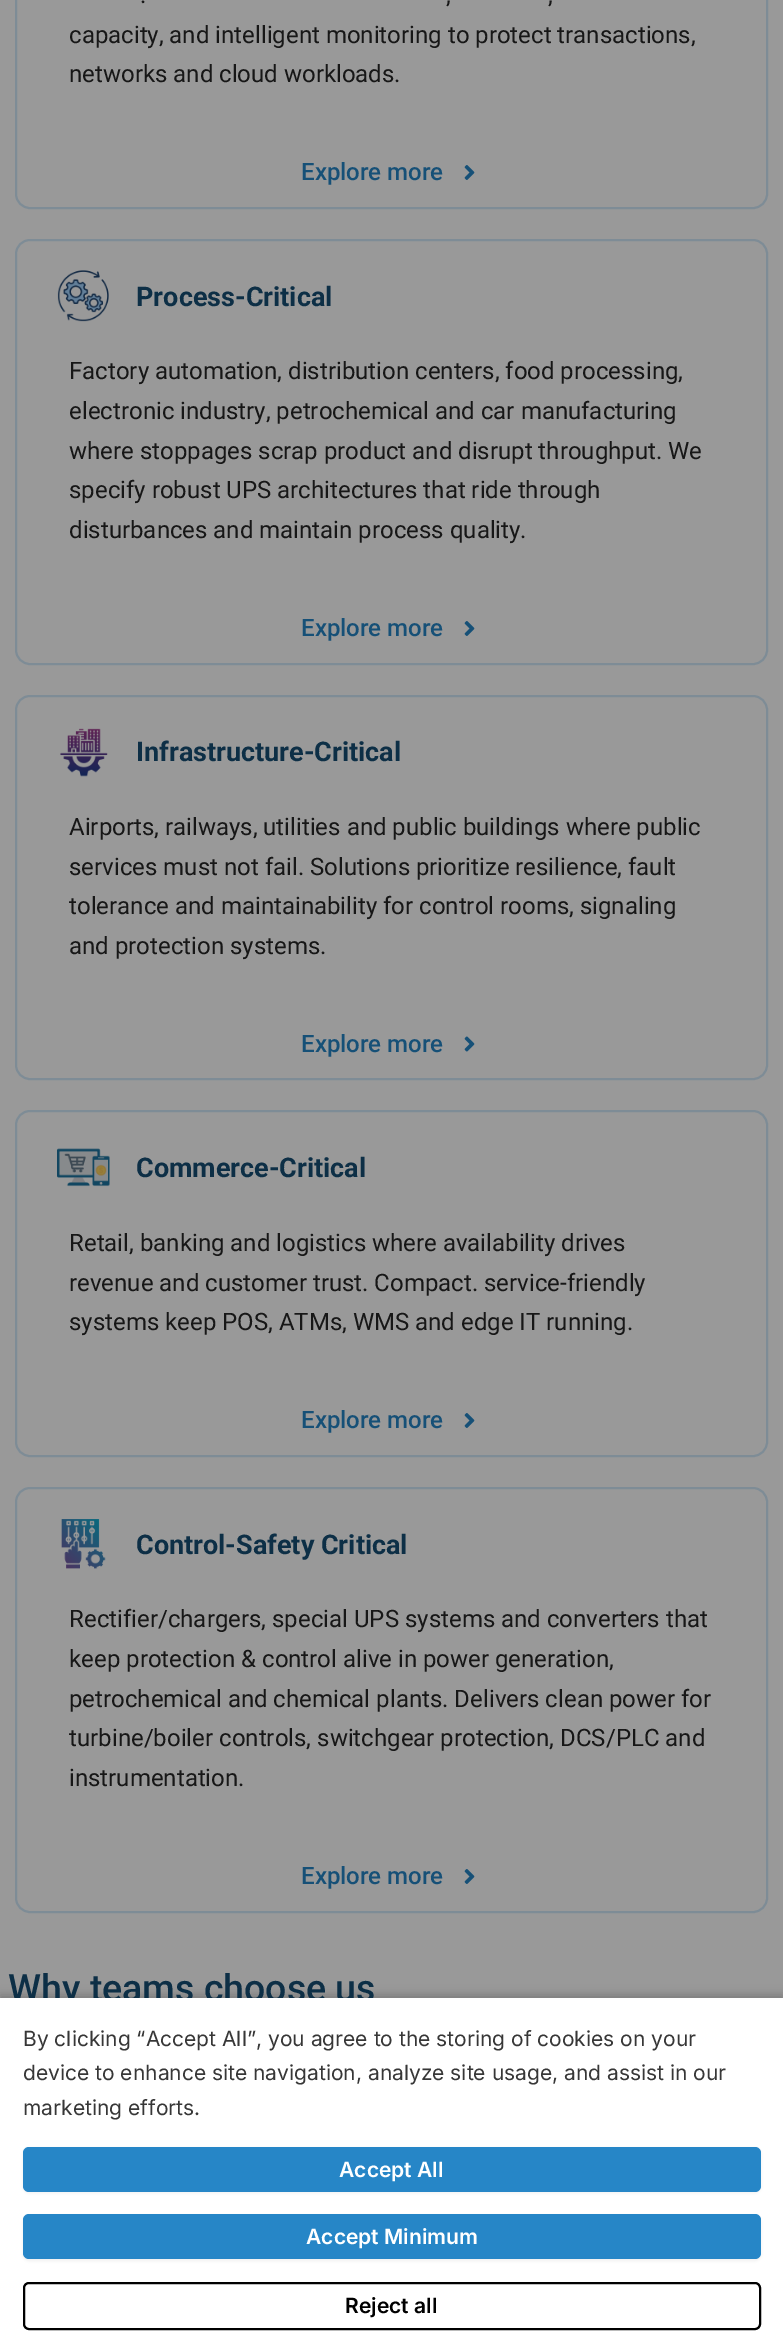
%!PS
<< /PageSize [783 2352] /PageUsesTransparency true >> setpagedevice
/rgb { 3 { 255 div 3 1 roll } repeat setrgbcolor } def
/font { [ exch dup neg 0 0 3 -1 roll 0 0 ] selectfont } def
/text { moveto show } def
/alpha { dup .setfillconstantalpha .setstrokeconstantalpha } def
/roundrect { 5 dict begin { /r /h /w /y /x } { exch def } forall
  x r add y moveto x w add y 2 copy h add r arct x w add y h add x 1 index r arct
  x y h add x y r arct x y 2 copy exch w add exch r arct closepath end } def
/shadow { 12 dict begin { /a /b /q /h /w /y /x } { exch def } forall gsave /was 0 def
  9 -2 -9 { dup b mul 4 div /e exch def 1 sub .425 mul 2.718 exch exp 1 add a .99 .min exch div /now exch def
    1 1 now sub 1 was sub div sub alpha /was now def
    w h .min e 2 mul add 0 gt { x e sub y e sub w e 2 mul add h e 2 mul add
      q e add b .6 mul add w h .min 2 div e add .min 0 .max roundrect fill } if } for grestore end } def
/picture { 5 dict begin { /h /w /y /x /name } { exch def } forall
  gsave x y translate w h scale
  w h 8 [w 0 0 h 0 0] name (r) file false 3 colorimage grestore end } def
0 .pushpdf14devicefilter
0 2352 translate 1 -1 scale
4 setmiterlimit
153 153 153 rgb
0 0 783 2352 rectfill
126 140 150 rgb
2 setlinewidth
16 -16 751 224 14 roundrect stroke
(img_01.rgb) 464 165 11 15 picture
16 240 751 424 14 roundrect stroke
(img_02.rgb) 57 270 52 52 picture
(img_01.rgb) 464 621 11 15 picture
16 696 751 383 14 roundrect stroke
(img_03.rgb) 60 728 48 49 picture
(img_04.rgb) 464 1036 11 16 picture
16 1111 751 345 14 roundrect stroke
(img_05.rgb) 57 1148 53 39 picture
(img_01.rgb) 464 1413 11 15 picture
16 1488 751 424 14 roundrect stroke
(img_06.rgb) 61 1519 45 50 picture
(img_01.rgb) 464 1869 11 15 picture
0 0 0 rgb
0 1995 783 354 0 4.5 0.2 shadow
/Roboto-Regular 24 font
23 23 23 rgb
(.) 140 3 text
(,) 446 3 text
(,) 548 3 text
(capacity, and intelligent monitoring to protect transactions,) 69 43 text
(networks and cloud workloads.) 69 82 text
/Roboto-Medium 24 font
22 80 119 rgb
(Explore more) 301 180 text
/Roboto-Bold 27 font
13 47 70 rgb
(Process-Critical) 136 306 text
/Roboto-Regular 24 font
23 23 23 rgb
(Factory automation, distribution centers, food processing,) 69 379 text
(electronic industry, petrochemical and car manufacturing) 69 419 text
(where stoppages scrap product and disrupt throughput. We) 69 459 text
(specify robust UPS architectures that ride through) 69 498 text
(disturbances and maintain process quality.) 69 538 text
/Roboto-Medium 24 font
22 80 119 rgb
(Explore more) 301 636 text
/Roboto-Bold 27 font
13 47 70 rgb
(Infrastructure-Critical) 136 761 text
/Roboto-Regular 24 font
23 23 23 rgb
(Airports, railways, utilities and public buildings where public) 69 835 text
(services must not fail. Solutions prioritize resilience, fault) 69 875 text
(tolerance and maintainability for control rooms, signaling) 69 914 text
(and protection systems.) 69 954 text
/Roboto-Medium 24 font
22 80 119 rgb
(Explore more) 301 1052 text
/Roboto-Bold 27 font
13 47 70 rgb
(Commerce-Critical) 136 1177 text
/Roboto-Regular 24 font
23 23 23 rgb
(Retail, banking and logistics where availability drives) 69 1251 text
(revenue and customer trust. Compact. service-friendly) 69 1291 text
(systems keep POS, ATMs, WMS and edge IT running.) 69 1330 text
/Roboto-Medium 24 font
22 80 119 rgb
(Explore more) 301 1428 text
/Roboto-Bold 27 font
13 47 70 rgb
(Control-Safety Critical) 136 1554 text
/Roboto-Regular 24 font
23 23 23 rgb
(Rectifier/chargers, special UPS systems and converters that) 69 1627 text
(keep protection & control alive in power generation,) 69 1667 text
(petrochemical and chemical plants. Delivers clean power for) 69 1707 text
(turbine/boiler controls, switchgear protection, DCS/PLC and) 69 1746 text
(instrumentation.) 69 1786 text
/Roboto-Medium 24 font
22 80 119 rgb
(Explore more) 301 1884 text
/Roboto-Medium 37.5 font
13 47 70 rgb
(Why teams choose us) 8 2001 text
255 255 255 rgb
0 1998 783 354 rectfill
/Inter-Regular 21 font
55 55 55 rgb
(By clicking “Accept All”, you agree to the storing of cookies on your) 23 2046 text
(device to enhance site navigation, analyze site usage, and assist in our) 23 2080 text
(marketing efforts.) 23 2115 text
0 0 0 rgb
23 2148 738 45 6 1.5 0.05 shadow
38 134 199 rgb
23 2147 738 45 6 roundrect fill
/Inter-SemiBold 21 font
255 255 255 rgb
(Accept All) 339 2177 text
0 0 0 rgb
23 2216 738 45 6 1.5 0.05 shadow
38 134 199 rgb
23 2214 738 45 6 roundrect fill
255 255 255 rgb
(Accept Minimum) 306 2244 text
0 0 0 rgb
24 2283 736 46 5 roundrect stroke
(Reject all) 345 2313 text
.poppdf14devicefilter showpage
